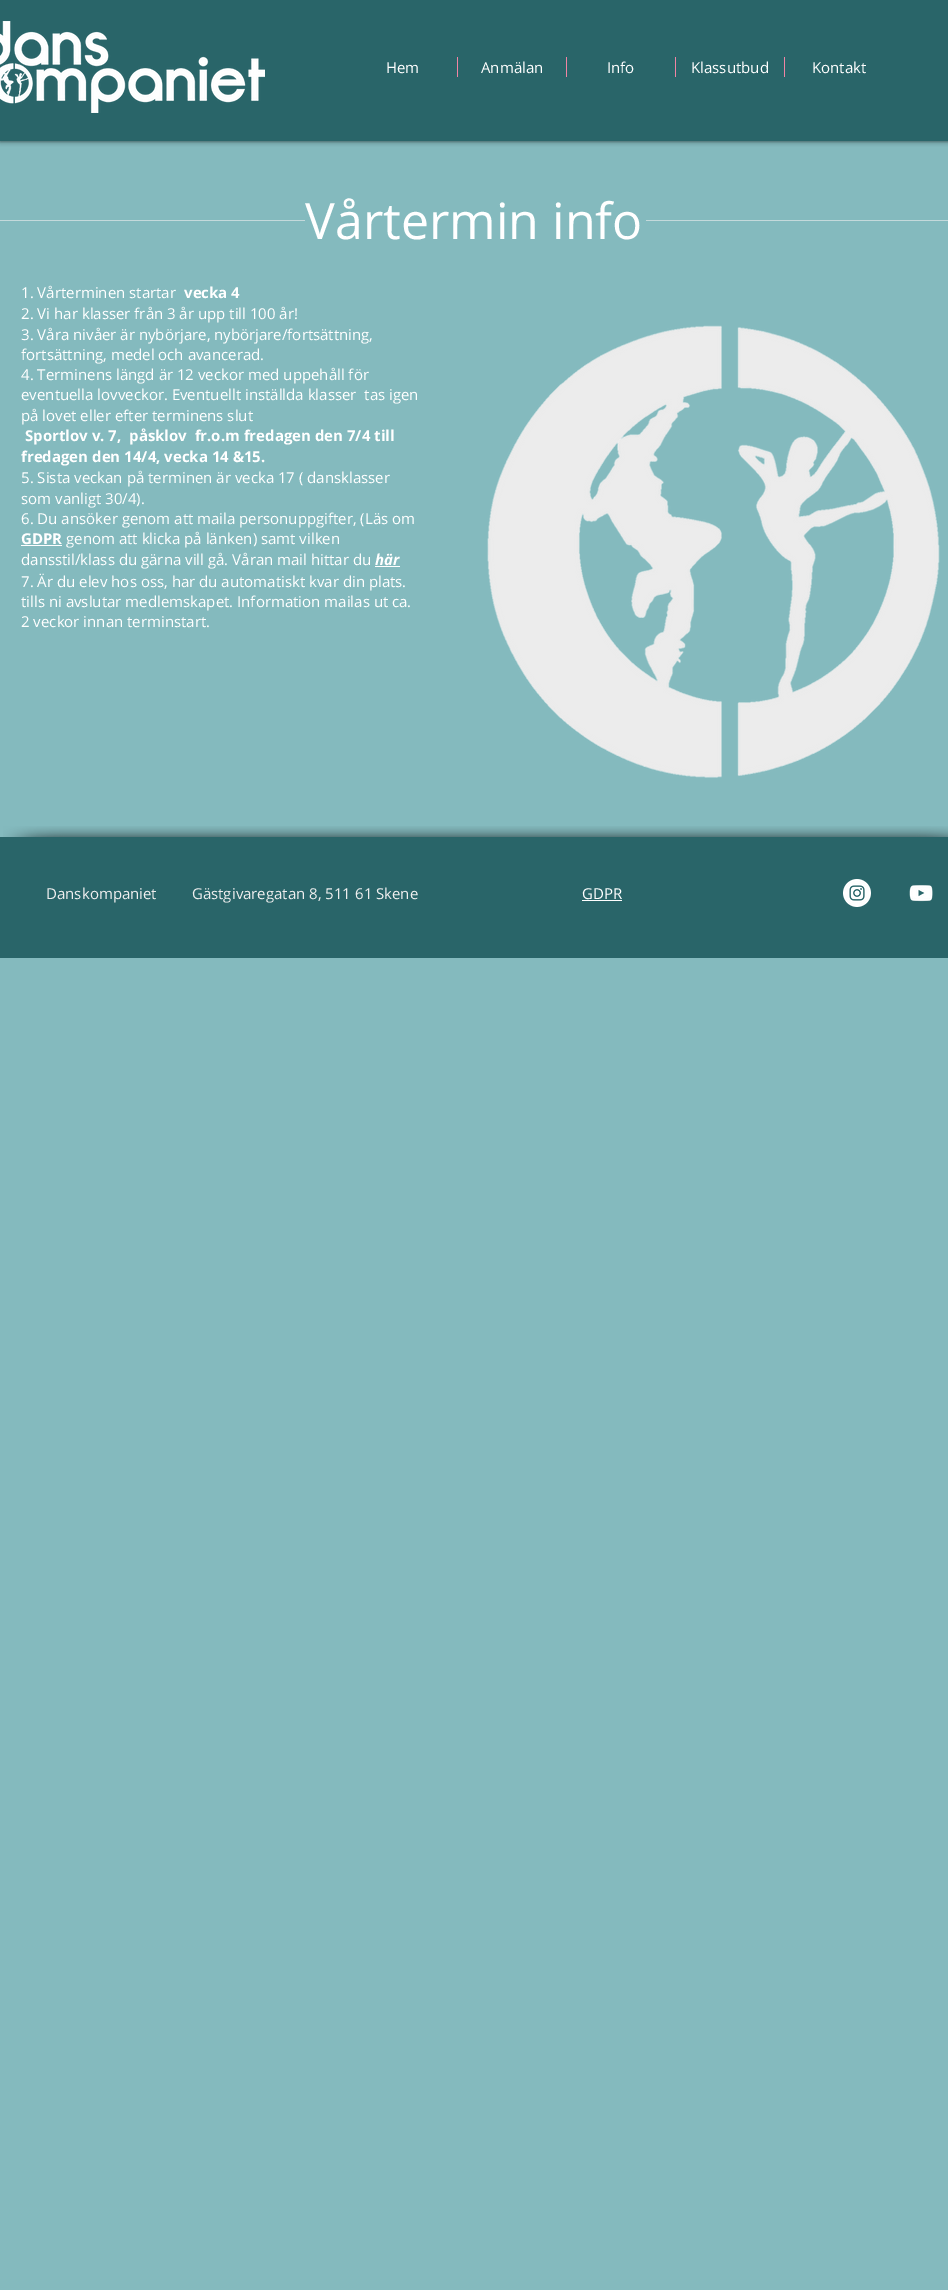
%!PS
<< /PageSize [948 2290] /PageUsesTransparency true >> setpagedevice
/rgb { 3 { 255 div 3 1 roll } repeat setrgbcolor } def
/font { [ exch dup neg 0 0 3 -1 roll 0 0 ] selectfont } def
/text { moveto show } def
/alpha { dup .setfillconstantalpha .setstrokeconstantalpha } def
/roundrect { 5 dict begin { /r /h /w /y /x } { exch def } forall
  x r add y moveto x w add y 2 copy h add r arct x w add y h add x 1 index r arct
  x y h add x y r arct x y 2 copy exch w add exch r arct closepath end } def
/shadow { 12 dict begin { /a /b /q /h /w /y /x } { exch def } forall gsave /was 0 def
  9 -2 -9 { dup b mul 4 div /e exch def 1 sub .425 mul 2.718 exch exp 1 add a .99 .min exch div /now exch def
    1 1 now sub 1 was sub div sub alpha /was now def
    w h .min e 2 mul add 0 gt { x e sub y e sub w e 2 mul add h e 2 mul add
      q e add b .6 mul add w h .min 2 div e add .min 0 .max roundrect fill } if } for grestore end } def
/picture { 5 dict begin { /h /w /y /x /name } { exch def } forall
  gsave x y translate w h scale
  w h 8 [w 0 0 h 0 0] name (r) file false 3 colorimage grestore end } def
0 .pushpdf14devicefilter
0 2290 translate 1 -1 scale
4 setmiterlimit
132 186 190 rgb
0 0 948 2290 rectfill
0 0 0 rgb
0 0 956 141 0 2.5 0.7 shadow
41 101 105 rgb
0 0 948 141 rectfill
(img_01.rgb) 0 21 265 92 picture
240 132 164 rgb
457 57 1 20 rectfill
566 57 1 20 rectfill
675 57 1 20 rectfill
784 57 1 20 rectfill
196 217 219 rgb
0 220 305 1 rectfill
646 220 302 1 rectfill
255 255 255 rgb
21 545 41 1 rectfill
375 566 25 1 rectfill
(img_02.rgb) 487 325 453 453 picture
41 101 105 rgb
0 837 948 121 rectfill
(img_03.rgb) 3 826 97 11 picture
(img_04.rgb) 100 826 780 11 picture
(img_05.rgb) 880 826 68 11 picture
255 255 255 rgb
582 900 40 1 rectfill
(img_06.rgb) 843 879 28 28 picture
(img_07.rgb) 909 885 24 17 picture
/OpenSans-Regular 15 font
(Hem) 386 73 text
(Anmälan) 481 73 text
(Info) 607 73 text
(Klassutbud) 691 73 text
(Kontakt) 812 73 text
/OpenSans-Regular 50 font
(Vårtermin info) 305 239 text
/OpenSans-Regular 15 font
(1. Vårterminen startar) 21 298 text
/OpenSans-Bold 15 font
(vecka 4) 184 298 text
/OpenSans-Regular 15 font
(2. Vi har klasser från 3 år upp till 100 år!) 21 319 text
(3. Våra nivåer är nybörjare, nybörjare/fortsättning,) 21 340 text
(fortsättning, medel och avancerad.) 21 360 text
(4. Terminens längd är 12 veckor med uppehåll för) 21 380 text
(eventuella lovveckor. Eventuellt inställda klasser  tas igen) 21 400 text
(på lovet eller efter terminens slut) 21 421 text
/OpenSans-Bold 15 font
(Sportlov v. 7,  påsklov  fr.o.m fredagen den 7/4 till) 25 441 text
(fredagen den 14/4, vecka 14 &15.) 21 462 text
/OpenSans-Regular 15 font
(5. Sista veckan på terminen är vecka 17 \( dansklasser) 21 483 text
(som vanligt 30/4\).) 21 504 text
(6. Du ansöker genom att maila personuppgifter, \(Läs om) 21 524 text
/OpenSans-Bold 15 font
(GDPR) 21 544 text
/OpenSans-Regular 15 font
(genom att klicka på länken\) samt vilken) 66 544 text
(dansstil/klass du gärna vill gå. Våran mail hittar du) 21 565 text
/OpenSans-BoldItalic 15 font
(här) 375 565 text
/OpenSans-Regular 15 font
(7. Är du elev hos oss, har du automatiskt kvar din plats.) 21 587 text
(tills ni avslutar medlemskapet. Information mailas ut ca.) 21 607 text
(2 veckor innan terminstart.) 21 627 text
238 238 238 rgb
(Danskompaniet         Gästgivaregatan 8, 511 61 Skene) 46 899 text
255 255 255 rgb
(GDPR) 582 899 text
.poppdf14devicefilter showpage
